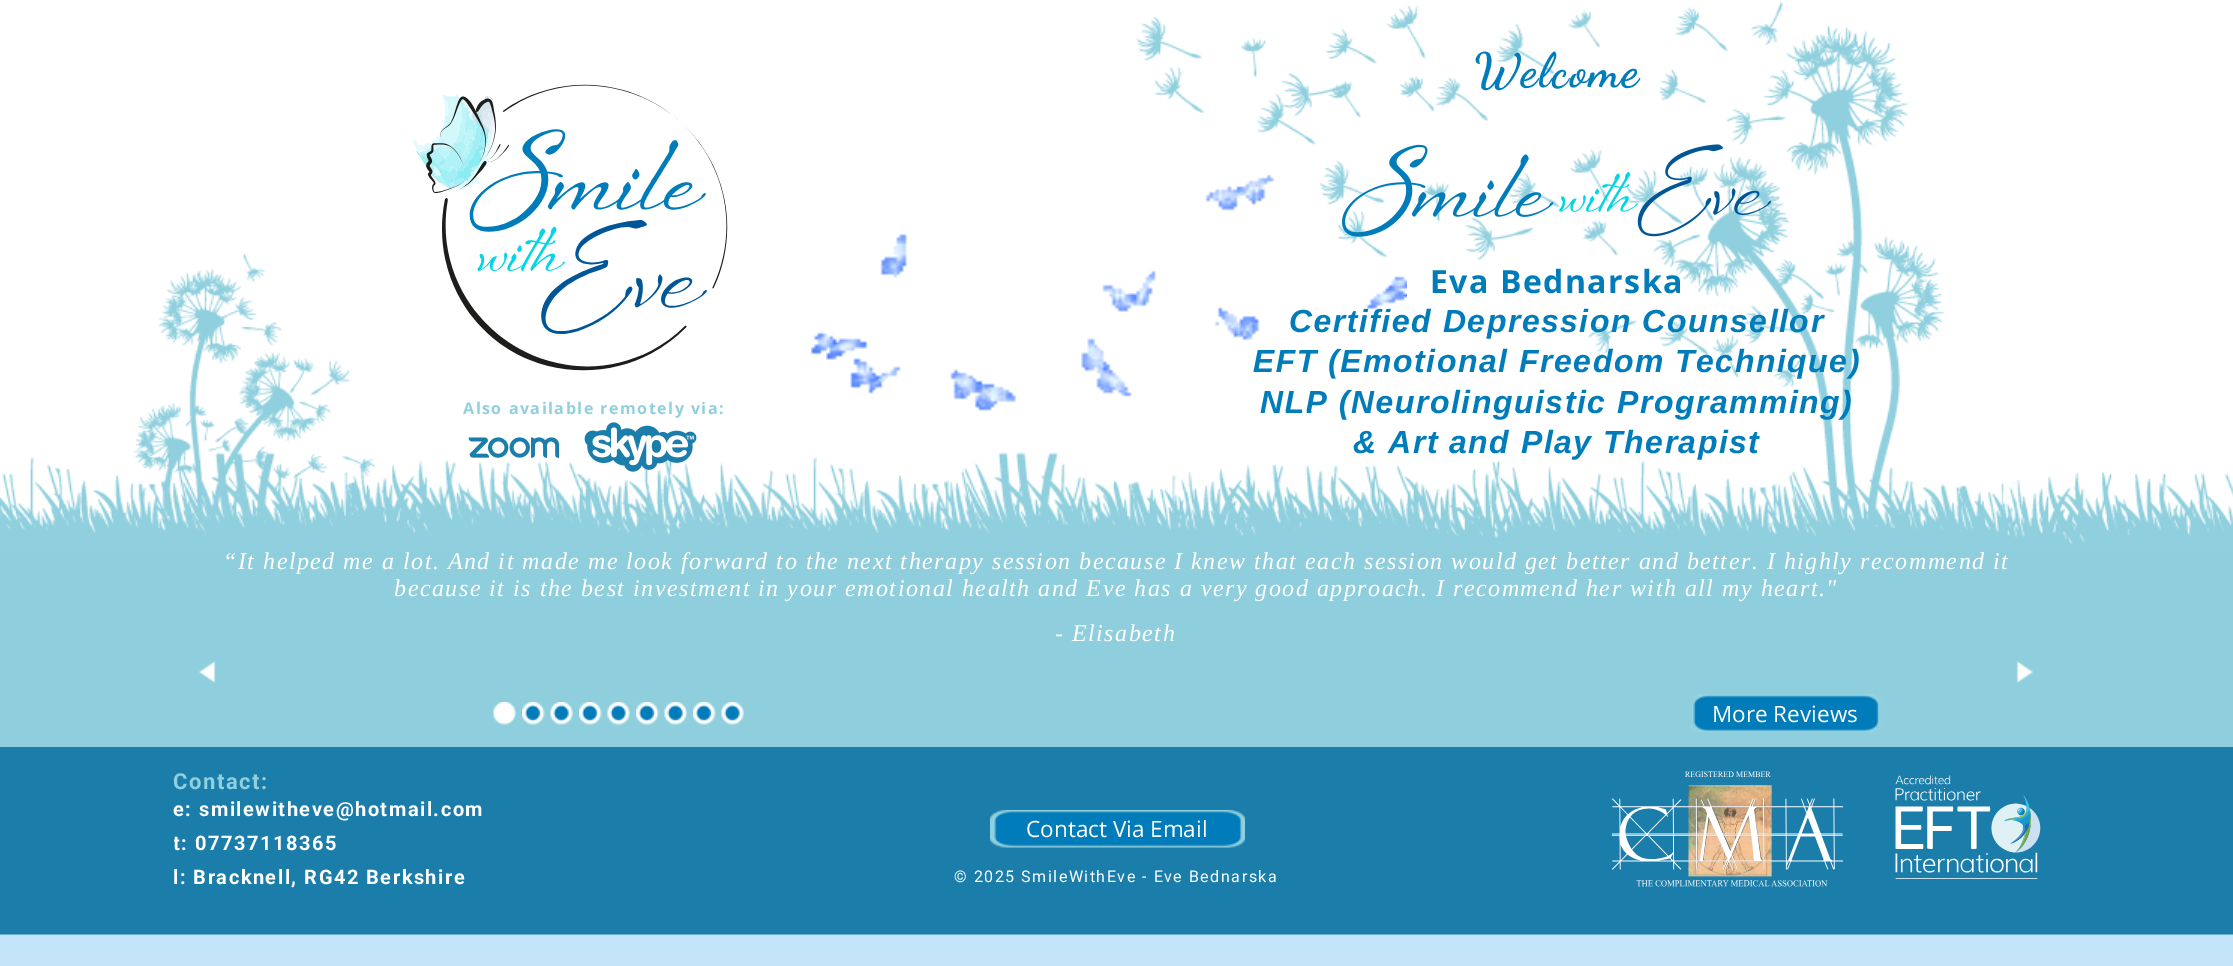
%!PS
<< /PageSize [2233 966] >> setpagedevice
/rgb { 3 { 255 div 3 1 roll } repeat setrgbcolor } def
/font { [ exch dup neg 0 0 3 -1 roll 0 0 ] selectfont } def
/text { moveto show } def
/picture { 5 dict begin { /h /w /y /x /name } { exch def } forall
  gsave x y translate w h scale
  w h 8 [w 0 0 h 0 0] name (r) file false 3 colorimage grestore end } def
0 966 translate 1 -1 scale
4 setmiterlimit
255 255 255 rgb
0 0 2233 966 rectfill
143 207 221 rgb
0 552 2233 195 rectfill
(img_01.rgb) 0 1 2233 551 picture
(img_02.rgb) 412 84 316 287 picture
(img_04.rgb) 1342 144 430 93 picture
(img_05.rgb) 468 437 92 21 picture
(img_06.rgb) 584 422 113 50 picture
(img_07.rgb) 199 661 17 22 picture
(img_08.rgb) 2016 661 17 22 picture
(img_09.rgb) 493 702 23 23 picture
(img_10.rgb) 522 702 23 23 picture
(img_11.rgb) 550 702 23 23 picture
(img_12.rgb) 579 702 23 23 picture
(img_11.rgb) 607 702 23 23 picture
(img_13.rgb) 636 702 23 23 picture
(img_11.rgb) 664 702 23 23 picture
(img_13.rgb) 693 702 23 23 picture
(img_11.rgb) 721 702 23 23 picture
(img_14.rgb) 1690 694 191 38 picture
(img_18.rgb) 0 747 2233 219 picture
(img_15.rgb) 990 810 255 38 picture
(img_16.rgb) 1611 771 233 116 picture
(img_17.rgb) 1895 775 146 104 picture
/DancingScript-Bold 48 font
0 124 186 rgb
1474 86 moveto 1.5 0 (Welcome) ashow
/OpenSans-Bold 16.05 font
144 208 222 rgb
463 414 moveto 1.5 0 (Also available remotely via:) ashow
/OpenSans-Bold 32 font
0 124 186 rgb
1430 293 moveto 1.5 0 (Eva Bednarska) ashow
/LiberationSans-BoldItalic 32 font
1289 332 moveto 1.5 0 (Certified Depression Counsellor) ashow
1253 372 moveto 1.5 0 (EFT \(Emotional Freedom Technique\)) ashow
1260 413 moveto 1.5 0 (NLP \(Neurolinguistic Programming\)) ashow
(img_03.rgb) 810 174 597 237 picture
1353 453 moveto 1.5 0 (& Art and Play Therapist) ashow
/LiberationSerif-Italic 24 font
255 255 255 rgb
223 569 moveto 1.5 0 (“It helped me a lot. And it made me look forward to the next therapy session because I knew that each session would get better and better. I highly recommend it) ashow
394 596 moveto 1.5 0 (because it is the best investment in your emotional health and Eve has a very good approach. I recommend her with all my heart.") ashow
1055 641 moveto 1.5 0 (- Elisabeth) ashow
/OpenSans-Regular 22.5 font
(More Reviews) 1712 722 text
/Roboto-Bold 22 font
144 208 222 rgb
173 789 moveto 1.5 0 (Contact:) ashow
/Roboto-Bold 20 font
255 255 255 rgb
173 816 moveto 1.5 0 (e: smilewitheve@hotmail.com) ashow
gsave
174 770 480 127 rectclip
173 850 moveto 1.5 0 (t:) ashow
grestore
195 850 moveto 1.5 0 (07737118365) ashow
173 884 moveto 1.5 0 (l: Bracknell, RG42 Berkshire) ashow
/OpenSans-Regular 22.5 font
(Contact Via Email) 1026 837 text
/Roboto-Regular 16.05 font
954 882 moveto 1.5 0 (© 2025 SmileWithEve - Eve Bednarska) ashow
showpage
